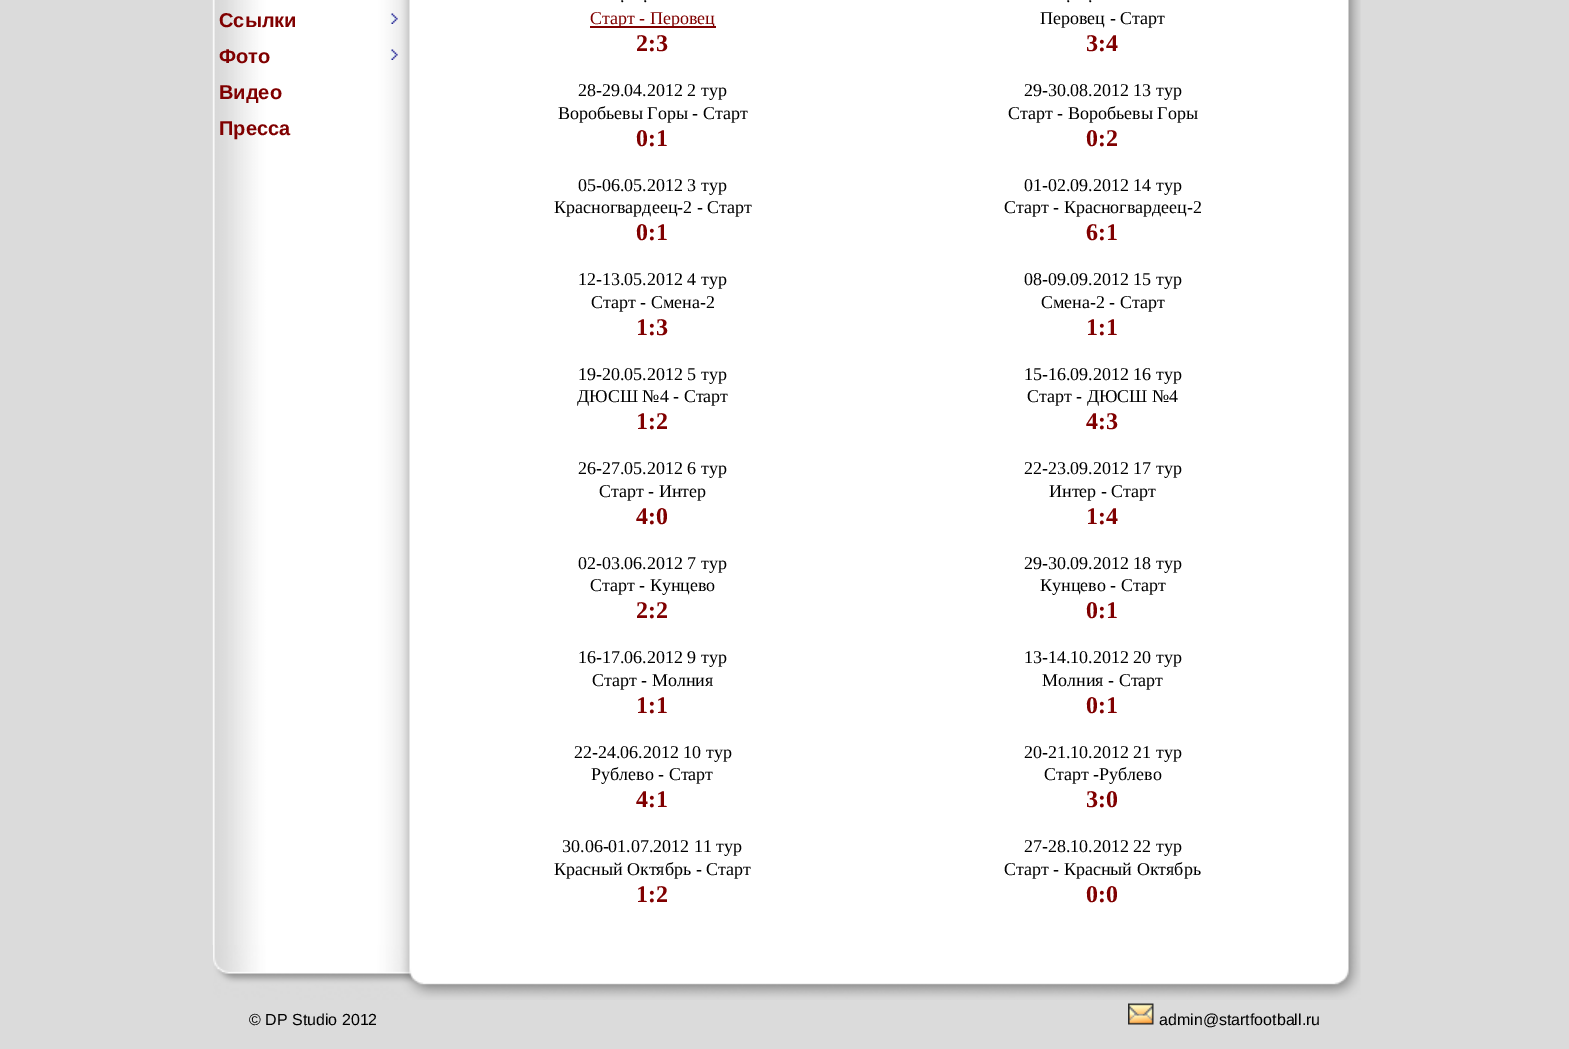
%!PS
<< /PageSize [1569 1049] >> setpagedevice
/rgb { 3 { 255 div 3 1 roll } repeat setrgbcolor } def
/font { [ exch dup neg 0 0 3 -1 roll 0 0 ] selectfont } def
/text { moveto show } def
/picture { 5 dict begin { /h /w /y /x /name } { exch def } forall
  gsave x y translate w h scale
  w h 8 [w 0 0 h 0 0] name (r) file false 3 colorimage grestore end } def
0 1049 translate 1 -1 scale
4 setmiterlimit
219 219 219 rgb
0 0 1569 1049 rectfill
(img_01.rgb) 212 0 223 945 picture
(img_02.rgb) 390 13 8 11 picture
(img_02.rgb) 390 49 8 11 picture
(img_03.rgb) 435 0 926 945 picture
128 0 0 rgb
590 26 126 2 rectfill
(img_04.rgb) 213 945 1148 55 picture
(img_05.rgb) 1128 1003 26 22 picture
/LiberationSans-Bold 20 font
(Ссылки) 219 27 text
(Фото) 219 63 text
(Видео) 219 99 text
(Пресса) 219 135 text
/LiberationSerif-Regular 18 font
0 0 0 rgb
(.) 620 2 text
(.) 643 2 text
128 0 0 rgb
(Старт - Перовец) 590 24 text
/LiberationSerif-Bold 24 font
(2:3) 636 51 text
/LiberationSerif-Regular 18 font
0 0 0 rgb
(28-29.04.2012 2 тур) 578 96 text
(Воробьевы Горы - Старт) 558 119 text
/LiberationSerif-Bold 24 font
128 0 0 rgb
(0:1) 636 146 text
/LiberationSerif-Regular 18 font
0 0 0 rgb
(05-06.05.2012 3 тур) 578 191 text
(Красногвардеец-2 - Старт) 554 213 text
/LiberationSerif-Bold 24 font
128 0 0 rgb
(0:1) 636 240 text
/LiberationSerif-Regular 18 font
0 0 0 rgb
(12-13.05.2012 4 тур) 578 285 text
(Старт - Смена-2) 591 308 text
/LiberationSerif-Bold 24 font
128 0 0 rgb
(1:3) 636 335 text
/LiberationSerif-Regular 18 font
0 0 0 rgb
(19-20.05.2012 5 тур) 578 380 text
(ДЮСШ №4 - Старт) 577 402 text
/LiberationSerif-Bold 24 font
128 0 0 rgb
(1:2) 636 429 text
/LiberationSerif-Regular 18 font
0 0 0 rgb
(26-27.05.2012 6 тур) 578 474 text
(Старт - Интер) 599 497 text
/LiberationSerif-Bold 24 font
128 0 0 rgb
(4:0) 636 524 text
/LiberationSerif-Regular 18 font
0 0 0 rgb
(02-03.06.2012 7 тур) 578 569 text
(Старт - Кунцево) 590 591 text
/LiberationSerif-Bold 24 font
128 0 0 rgb
(2:2) 636 618 text
/LiberationSerif-Regular 18 font
0 0 0 rgb
(16-17.06.2012 9 тур) 578 663 text
(Старт - Молния) 592 686 text
/LiberationSerif-Bold 24 font
128 0 0 rgb
(1:1) 636 713 text
/LiberationSerif-Regular 18 font
0 0 0 rgb
(22-24.06.2012 10 тур) 574 758 text
(Рублево - Старт) 591 780 text
/LiberationSerif-Bold 24 font
128 0 0 rgb
(4:1) 636 807 text
/LiberationSerif-Regular 18 font
0 0 0 rgb
(30.06-01.07.2012 11 тур) 562 852 text
(Красный Октябрь - Старт) 554 875 text
/LiberationSerif-Bold 24 font
128 0 0 rgb
(1:2) 636 902 text
/LiberationSerif-Regular 18 font
0 0 0 rgb
(.) 1066 2 text
(.) 1088 2 text
(Перовец - Старт) 1040 24 text
/LiberationSerif-Bold 24 font
128 0 0 rgb
(3:4) 1086 51 text
/LiberationSerif-Regular 18 font
0 0 0 rgb
(29-30.08.2012 13 тур) 1024 96 text
(Старт - Воробьевы Горы) 1008 119 text
/LiberationSerif-Bold 24 font
128 0 0 rgb
(0:2) 1086 146 text
/LiberationSerif-Regular 18 font
0 0 0 rgb
(01-02.09.2012 14 тур) 1024 191 text
(Старт - Красногвардеец-2) 1004 213 text
/LiberationSerif-Bold 24 font
128 0 0 rgb
(6:1) 1086 240 text
/LiberationSerif-Regular 18 font
0 0 0 rgb
(08-09.09.2012 15 тур) 1024 285 text
(Смена-2 - Старт) 1041 308 text
/LiberationSerif-Bold 24 font
128 0 0 rgb
(1:1) 1086 335 text
/LiberationSerif-Regular 18 font
0 0 0 rgb
(15-16.09.2012 16 тур) 1024 380 text
(Старт - ДЮСШ №4) 1027 402 text
/LiberationSerif-Bold 24 font
128 0 0 rgb
(4:3) 1086 429 text
/LiberationSerif-Regular 18 font
0 0 0 rgb
(22-23.09.2012 17 тур) 1024 474 text
(Интер - Старт) 1049 497 text
/LiberationSerif-Bold 24 font
128 0 0 rgb
(1:4) 1086 524 text
/LiberationSerif-Regular 18 font
0 0 0 rgb
(29-30.09.2012 18 тур) 1024 569 text
(Кунцево - Старт) 1040 591 text
/LiberationSerif-Bold 24 font
128 0 0 rgb
(0:1) 1086 618 text
/LiberationSerif-Regular 18 font
0 0 0 rgb
(13-14.10.2012 20 тур) 1024 663 text
(Молния - Старт) 1042 686 text
/LiberationSerif-Bold 24 font
128 0 0 rgb
(0:1) 1086 713 text
/LiberationSerif-Regular 18 font
0 0 0 rgb
(20-21.10.2012 21 тур) 1024 758 text
(Старт -Рублево) 1044 780 text
/LiberationSerif-Bold 24 font
128 0 0 rgb
(3:0) 1086 807 text
/LiberationSerif-Regular 18 font
0 0 0 rgb
(27-28.10.2012 22 тур) 1024 852 text
(Старт - Красный Октябрь) 1004 875 text
/LiberationSerif-Bold 24 font
128 0 0 rgb
(0:0) 1086 902 text
/LiberationSans-Regular 16 font
0 0 0 rgb
(© DP Studio 2012) 249 1025 text
(admin@startfootball.ru) 1159 1025 text
showpage
